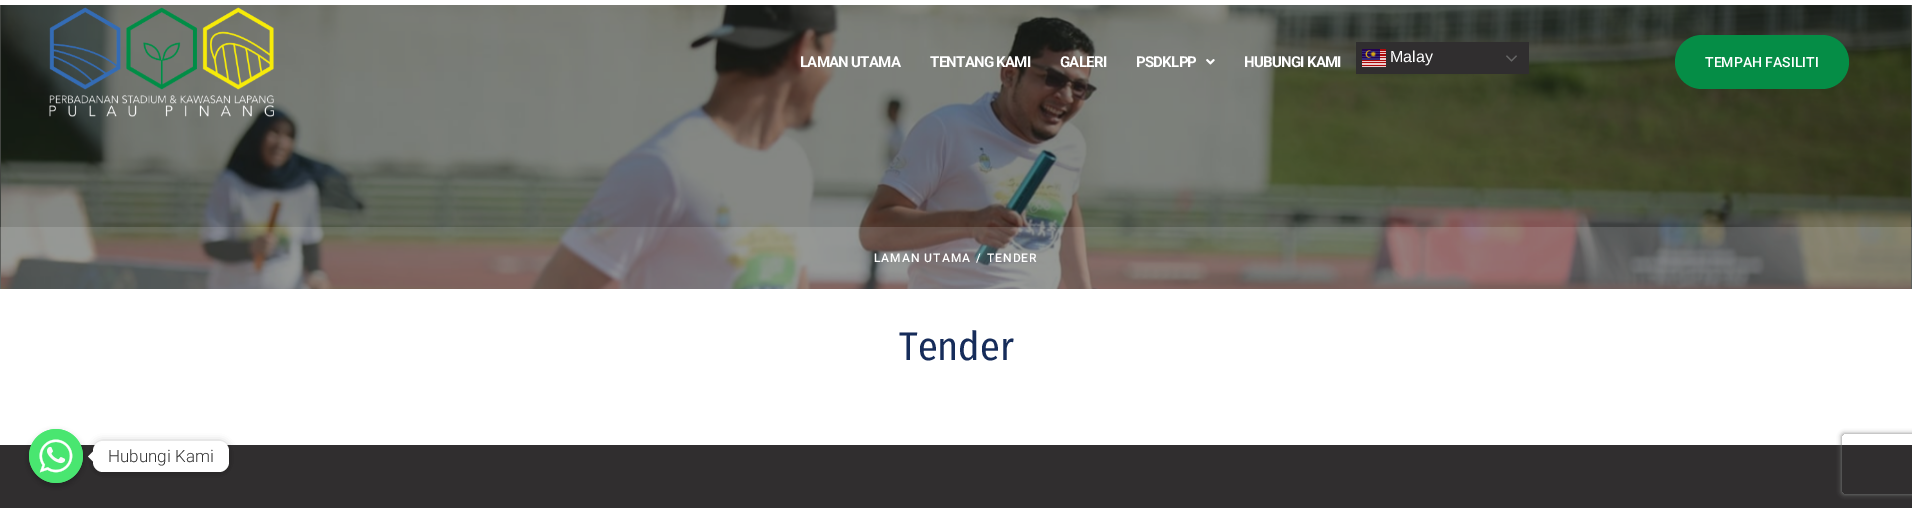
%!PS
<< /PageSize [1912 508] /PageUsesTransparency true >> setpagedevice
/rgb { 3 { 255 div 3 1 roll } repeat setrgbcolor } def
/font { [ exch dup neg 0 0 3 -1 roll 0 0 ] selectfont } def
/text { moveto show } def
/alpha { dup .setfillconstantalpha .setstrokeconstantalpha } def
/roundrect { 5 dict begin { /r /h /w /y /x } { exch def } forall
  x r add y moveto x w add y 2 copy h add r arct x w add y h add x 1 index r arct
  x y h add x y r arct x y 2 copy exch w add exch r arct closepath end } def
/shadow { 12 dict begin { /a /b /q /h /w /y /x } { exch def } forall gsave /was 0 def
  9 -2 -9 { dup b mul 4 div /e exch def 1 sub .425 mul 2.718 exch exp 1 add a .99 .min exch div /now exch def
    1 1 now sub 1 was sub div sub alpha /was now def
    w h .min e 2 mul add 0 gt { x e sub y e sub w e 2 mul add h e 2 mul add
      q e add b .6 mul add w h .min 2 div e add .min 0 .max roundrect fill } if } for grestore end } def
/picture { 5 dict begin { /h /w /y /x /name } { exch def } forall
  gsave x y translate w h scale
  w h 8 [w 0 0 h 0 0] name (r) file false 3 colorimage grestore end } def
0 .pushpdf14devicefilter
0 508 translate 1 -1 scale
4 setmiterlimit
255 255 255 rgb
0 0 1912 508 rectfill
(img_05.rgb) 0 5 1912 284 picture
(img_01.rgb) 49 7 225 110 picture
(img_02.rgb) 1206 59 9 6 picture
48 46 47 rgb
1356 42 173 32 rectfill
(img_03.rgb) 1362 49 24 18 picture
(img_04.rgb) 1506 55 11 7 picture
5 141 70 rgb
1675 35 174 54 27 roundrect fill
0.14 alpha
255 255 255 rgb
0 227 1912 62 rectfill
1 alpha
48 46 47 rgb
0 445 1912 63 rectfill
0 0 0 rgb
29 432 54 54 27 3 0.25 shadow
(img_06.rgb) 29 429 54 54 picture
93 442 136 31 10 4 0.15 shadow
93 442 136 31 10 4 0.15 shadow
255 255 255 rgb
93 441 136 31 10 roundrect fill
93 451.5 moveto 0 10 rlineto -5 -5 rlineto closepath fill
gsave
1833 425 moveto 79 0 rlineto 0 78 rlineto -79 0 rlineto closepath 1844 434 moveto 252 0 rlineto 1 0 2 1 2 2 rcurveto 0 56 rlineto 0 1 -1 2 -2 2 rcurveto -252 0 rlineto -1 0 -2 -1 -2 -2 rcurveto 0 -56 rlineto 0 -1 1 -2 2 -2 rcurveto closepath eoclip newpath
128 128 128 rgb
1842 434 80 60 2 2.5 1 shadow
grestore
/Roboto-Bold 15 font
800 67 moveto -0.75 0 (LAMAN UTAMA) ashow
930 67 moveto -0.75 0 (TENTANG KAMI) ashow
1060 67 moveto -0.75 0 (GALERI) ashow
1136 67 moveto -0.75 0 (PSDKLPP) ashow
1244 67 moveto -0.75 0 (HUBUNGI KAMI) ashow
/LiberationSans-Regular 16 font
(Malay) 1390 62 text
/Roboto-Medium 14 font
(TEMPAH FASILITI) 1705 67 text
/Roboto-Medium 12 font
874 262 moveto 1 0 (LAMAN UTAMA) ashow
976 262 moveto 1 0 (/) ashow
987 262 moveto 1 0 (TENDER) ashow
/FiraSansCondensed-Regular 40 font
22 44 90 rgb
(Tender) 899 360 text
/Roboto-Light 17 font
51 51 51 rgb
(Hubungi Kami) 108 462 text
.poppdf14devicefilter showpage
